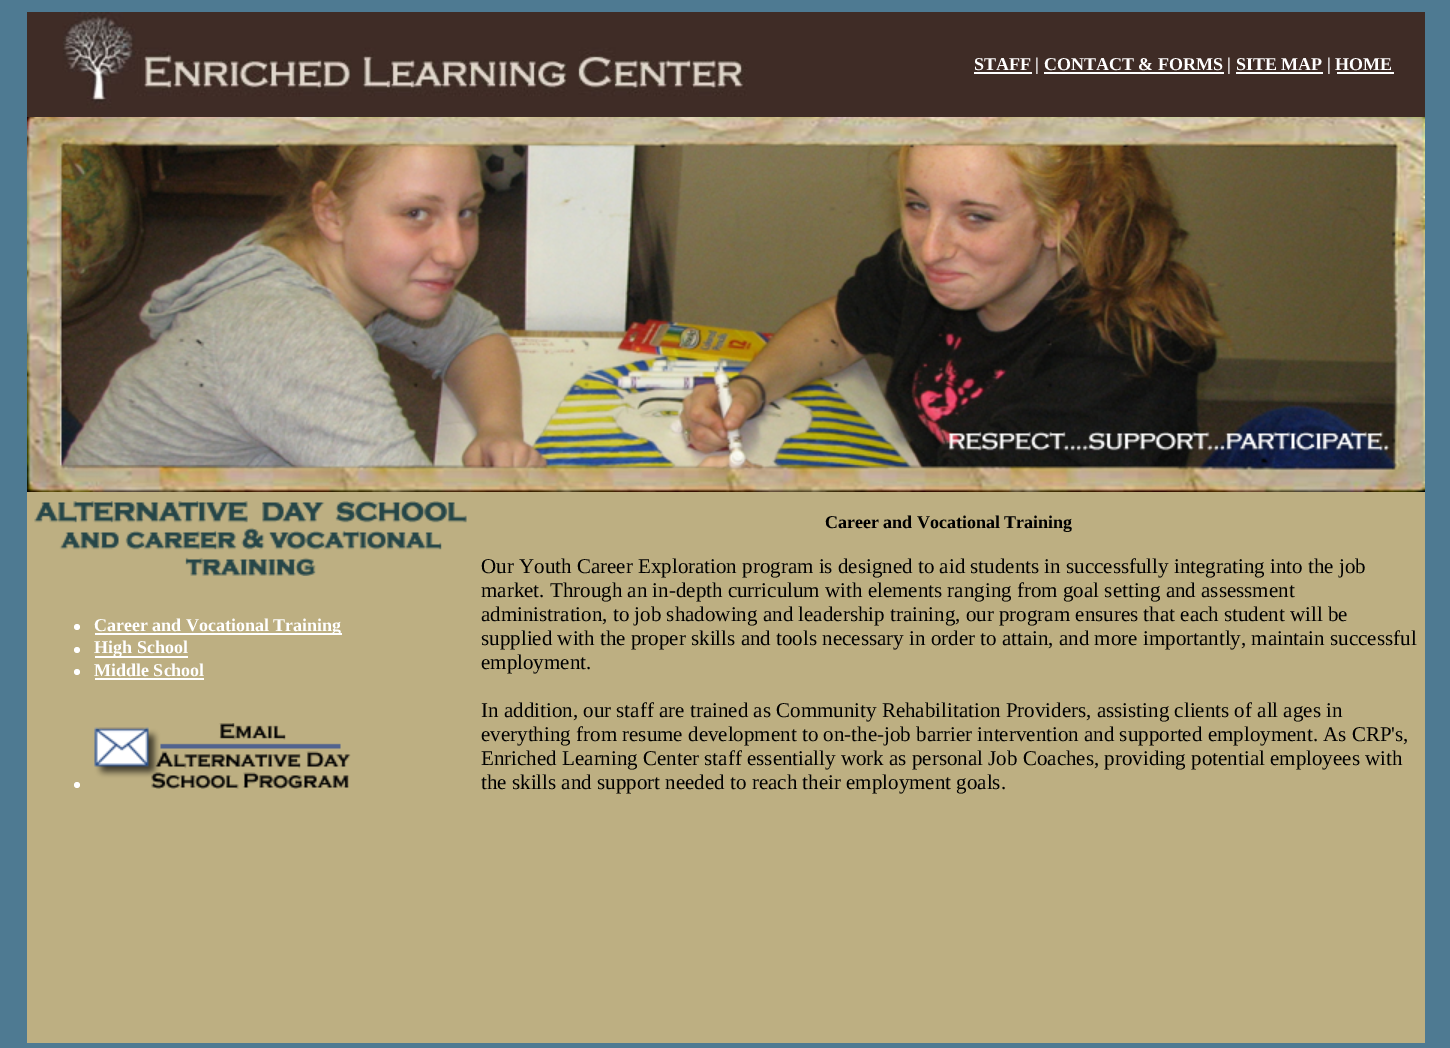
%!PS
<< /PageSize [1450 1048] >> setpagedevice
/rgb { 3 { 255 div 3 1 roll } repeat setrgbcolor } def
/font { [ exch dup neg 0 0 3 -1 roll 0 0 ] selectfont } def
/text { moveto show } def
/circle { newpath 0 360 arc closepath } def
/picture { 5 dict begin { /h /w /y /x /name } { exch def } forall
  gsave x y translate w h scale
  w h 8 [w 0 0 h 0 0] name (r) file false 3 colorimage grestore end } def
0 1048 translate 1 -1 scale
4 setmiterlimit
78 122 146 rgb
0 0 1450 1048 rectfill
(img_01.rgb) 27 12 1398 105 picture
255 255 255 rgb
974 72 58 2 rectfill
1044 72 180 2 rectfill
1236 72 87 2 rectfill
1337 72 57 2 rectfill
(img_02.rgb) 27 117 1398 375 picture
189 175 130 rgb
27 492 1398 551 rectfill
255 255 255 rgb
77 627 3 circle fill
95 633 247 2 rectfill
77 650 3 circle fill
95 656 93 2 rectfill
77 672 3 circle fill
95 678 109 2 rectfill
77 785 3 circle fill
(img_03.rgb) 94 723 257 66 picture
(img_04.rgb) 34 501 433 75 picture
/LiberationSerif-Bold 18 font
(STAFF | CONTACT & FORMS | SITE MAP | HOME) 974 70 text
(Career and Vocational Training) 94 631 text
(High School) 94 653 text
(Middle School) 94 676 text
0 0 0 rgb
(Career and Vocational Training) 825 528 text
/LiberationSerif-Regular 21 font
(Our Youth Career Exploration program is designed to aid students in successfully integrating into the job) 481 573 text
(market. Through an in-depth curriculum with elements ranging from goal setting and assessment) 481 597 text
(administration, to job shadowing and leadership training, our program ensures that each student will be) 481 621 text
(supplied with the proper skills and tools necessary in order to attain, and more importantly, maintain successful) 481 645 text
(employment.) 481 669 text
(In addition, our staff are trained as Community Rehabilitation Providers, assisting clients of all ages in) 481 717 text
(everything from resume development to on-the-job barrier intervention and supported employment. As CRP's,) 481 741 text
(Enriched Learning Center staff essentially work as personal Job Coaches, providing potential employees with) 481 765 text
(the skills and support needed to reach their employment goals.) 481 789 text
showpage
